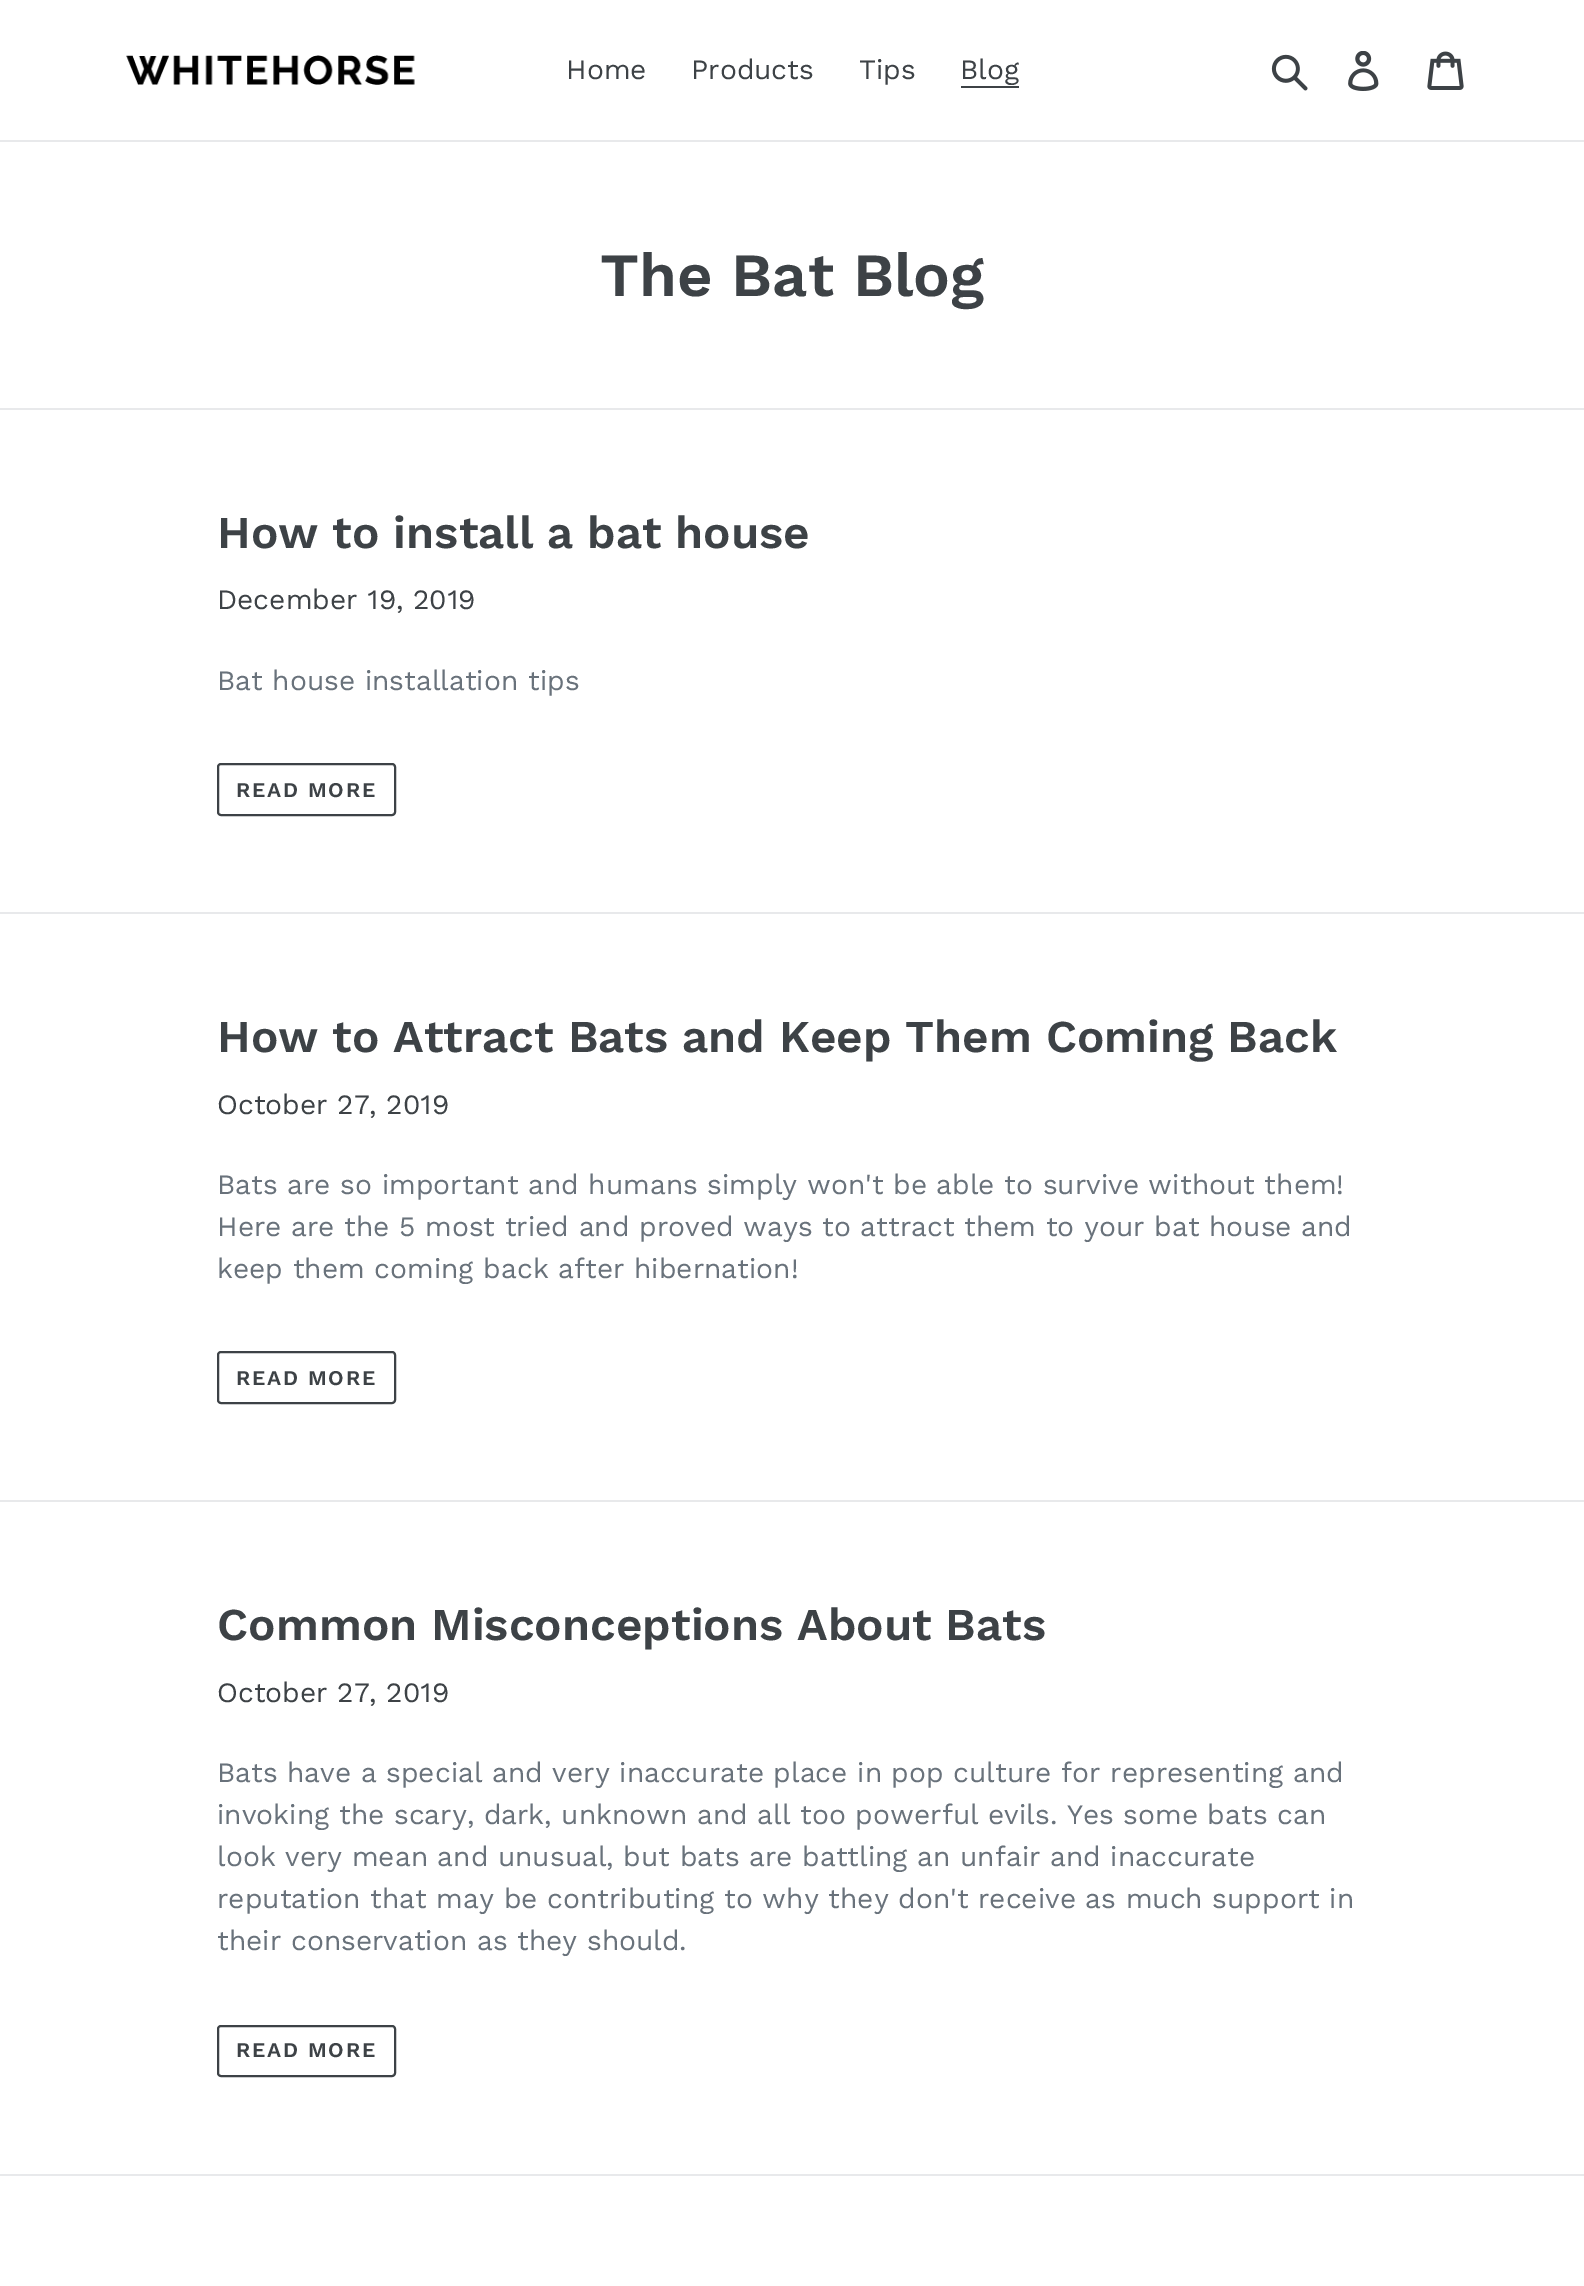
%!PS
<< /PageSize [1584 2286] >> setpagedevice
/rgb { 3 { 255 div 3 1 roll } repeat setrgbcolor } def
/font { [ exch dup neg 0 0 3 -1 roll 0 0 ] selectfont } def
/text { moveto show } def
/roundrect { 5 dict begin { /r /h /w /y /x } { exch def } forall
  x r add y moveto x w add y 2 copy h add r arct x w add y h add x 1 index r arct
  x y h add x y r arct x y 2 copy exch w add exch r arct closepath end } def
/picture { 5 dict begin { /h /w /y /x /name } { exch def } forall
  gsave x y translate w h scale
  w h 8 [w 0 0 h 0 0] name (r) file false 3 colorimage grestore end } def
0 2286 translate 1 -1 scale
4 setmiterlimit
255 255 255 rgb
0 0 1584 2286 rectfill
232 233 235 rgb
0 140 1584 2 rectfill
(img_01.rgb) 126 55 289 30 picture
61 66 70 rgb
961 86 58 2 rectfill
(img_02.rgb) 1271 54 37 37 picture
(img_03.rgb) 1348 51 31 40 picture
(img_04.rgb) 1427 51 37 39 picture
232 233 235 rgb
0 408 1584 2 rectfill
61 66 70 rgb
2 setlinewidth
218 764 177 51 3 roundrect stroke
232 233 235 rgb
0 912 1584 2 rectfill
61 66 70 rgb
218 1352 177 51 3 roundrect stroke
232 233 235 rgb
0 1500 1584 2 rectfill
61 66 70 rgb
218 2026 177 50 3 roundrect stroke
232 233 235 rgb
0 2174 1584 2 rectfill
/WorkSans-Regular 28 font
61 66 70 rgb
(Home) 566 79 text
(Products) 691 79 text
(Tips) 859 79 text
(Blog) 960 79 text
/WorkSans-SemiBold 61.25 font
(The Bat Blog) 600 296 text
/WorkSans-SemiBold 45.5 font
(How to install a bat house) 217 548 text
/WorkSans-Regular 28 font
(December 19, 2019) 217 609 text
105 114 123 rgb
(Bat house installation tips) 217 690 text
/WorkSans-SemiBold 21 font
61 66 70 rgb
236 797 moveto 1.75 0 (READ MORE) ashow
/WorkSans-SemiBold 45.5 font
(How to Attract Bats and Keep Them Coming Back) 217 1052 text
/WorkSans-Regular 28 font
(October 27, 2019) 217 1114 text
105 114 123 rgb
(Bats are so important and humans simply won't be able to survive without them!) 217 1194 text
(Here are the 5 most tried and proved ways to attract them to your bat house and) 217 1236 text
(keep them coming back after hibernation!) 217 1278 text
/WorkSans-SemiBold 21 font
61 66 70 rgb
236 1385 moveto 1.75 0 (READ MORE) ashow
/WorkSans-SemiBold 45.5 font
(Common Misconceptions About Bats) 217 1640 text
/WorkSans-Regular 28 font
(October 27, 2019) 217 1702 text
105 114 123 rgb
(Bats have a special and very inaccurate place in pop culture for representing and) 217 1782 text
(invoking the scary, dark, unknown and all too powerful evils. Yes some bats can) 217 1824 text
(look very mean and unusual, but bats are battling an unfair and inaccurate) 217 1866 text
(reputation that may be contributing to why they don't receive as much support in) 217 1908 text
(their conservation as they should.) 217 1950 text
/WorkSans-SemiBold 21 font
61 66 70 rgb
236 2057 moveto 1.75 0 (READ MORE) ashow
showpage
